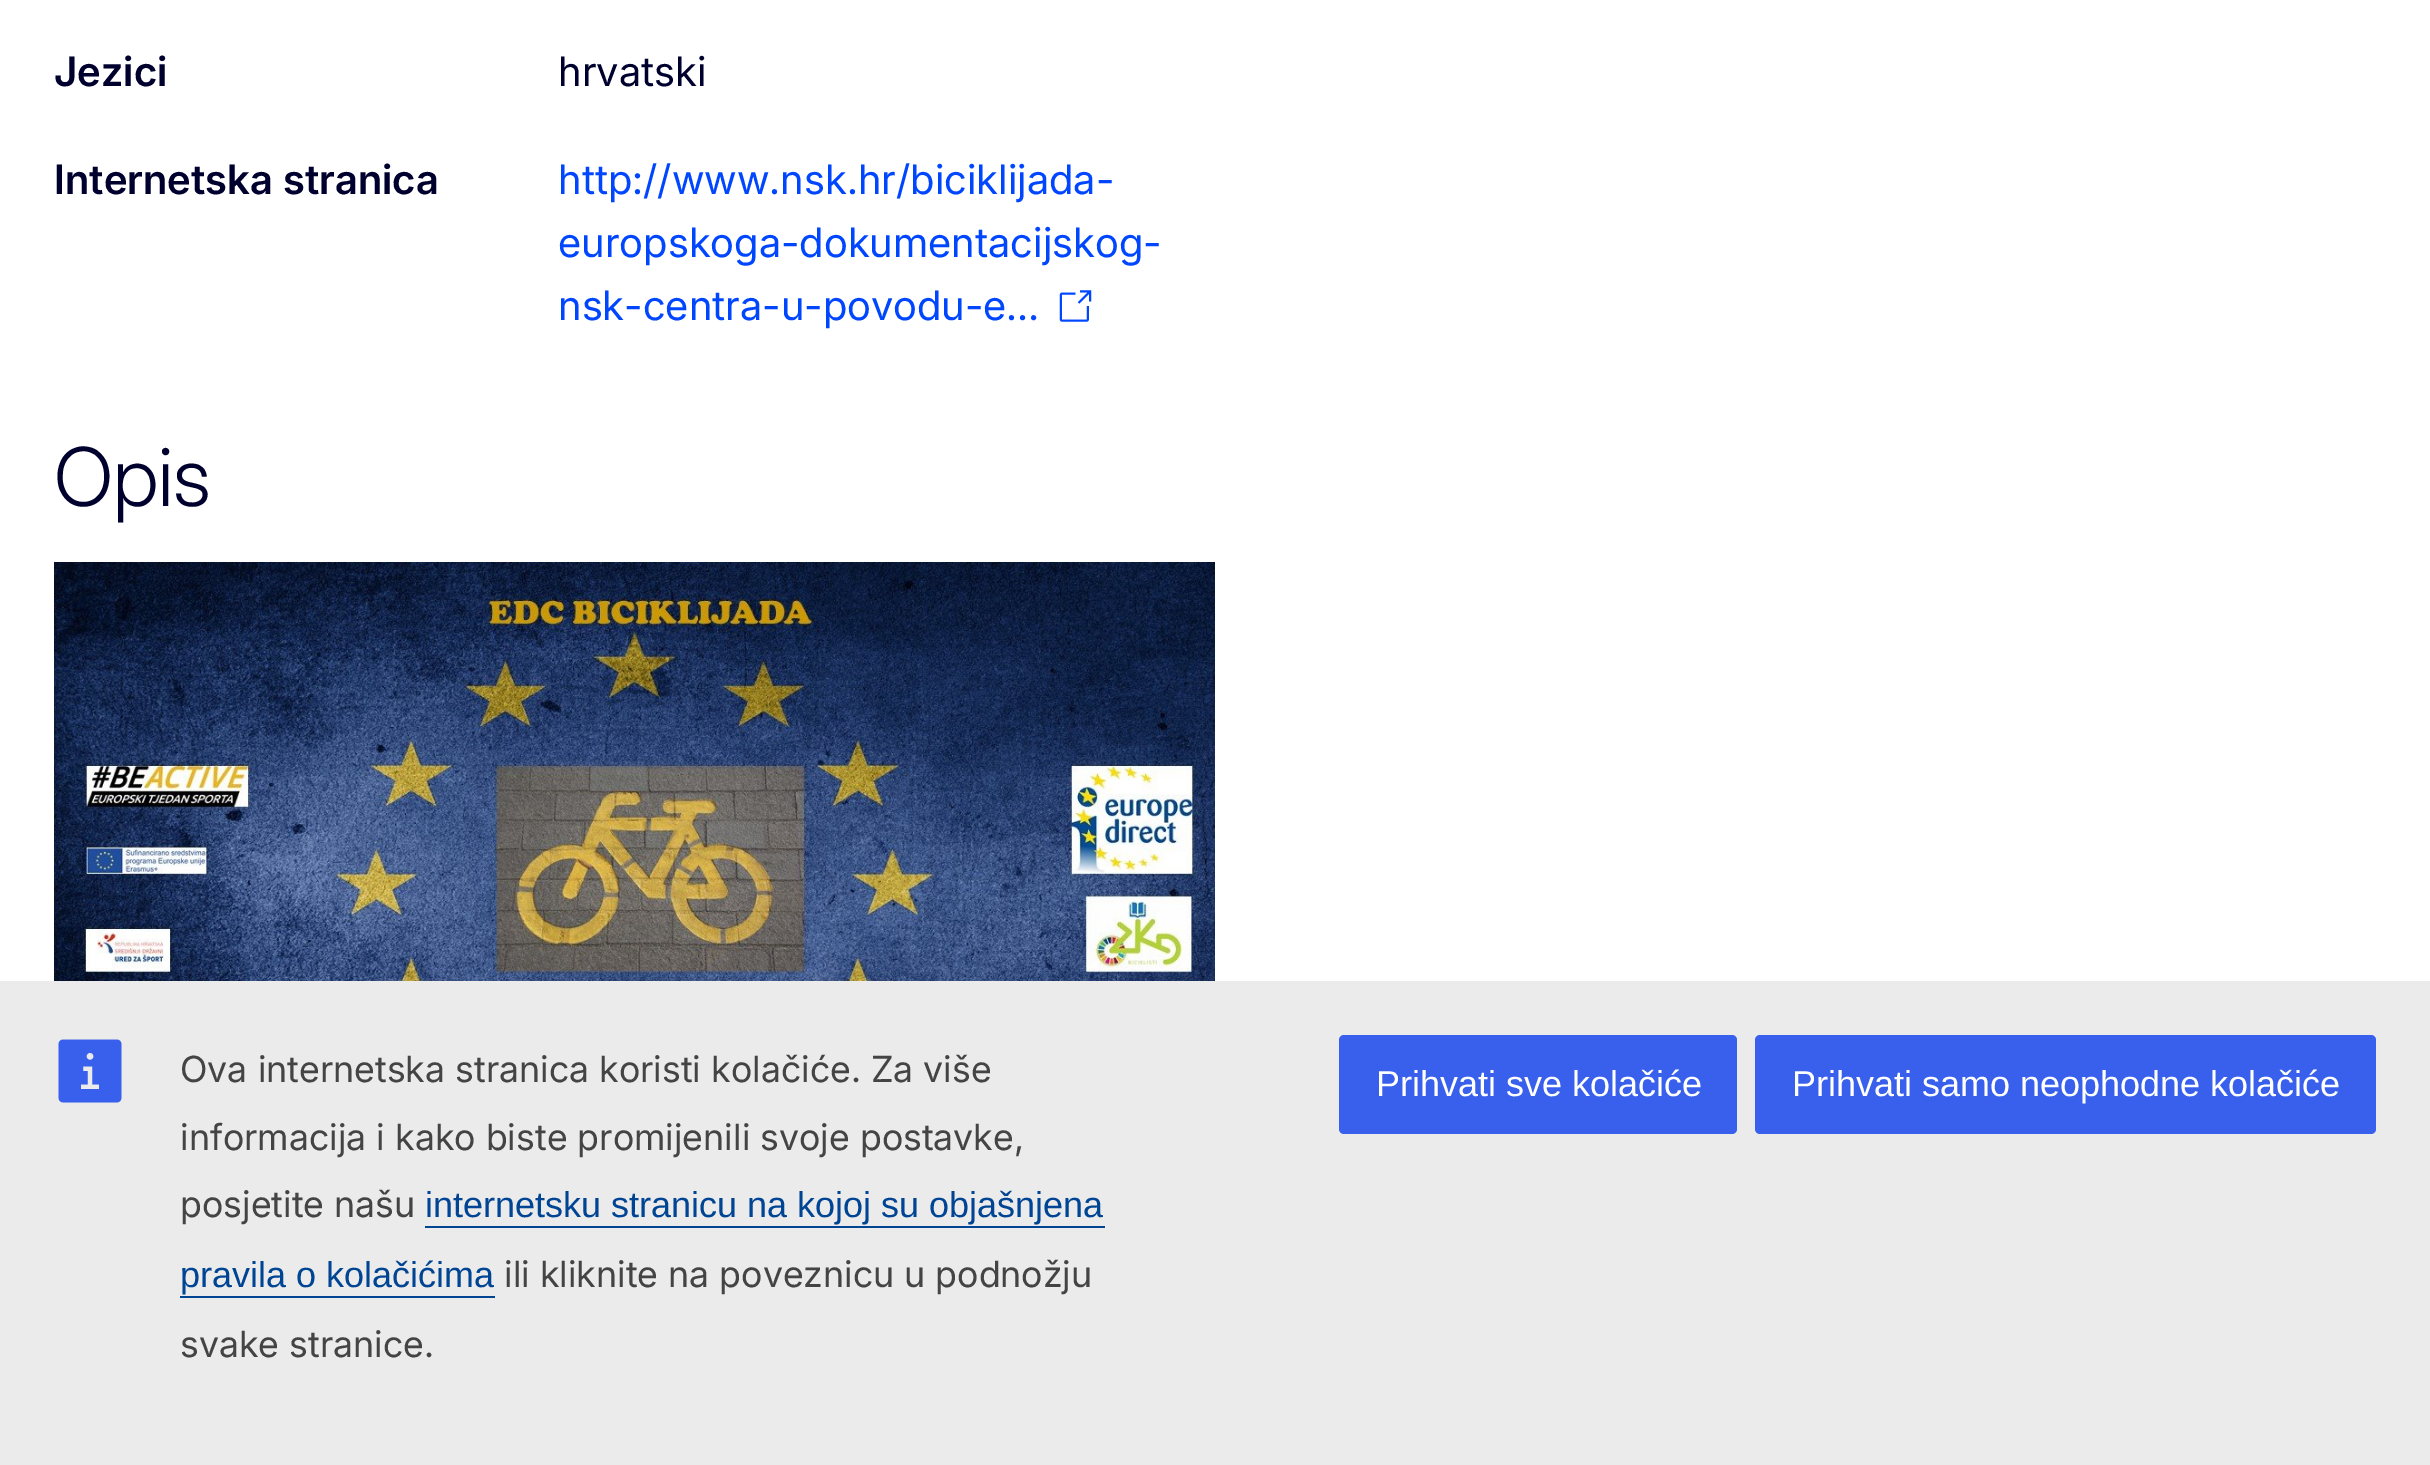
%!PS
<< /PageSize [2430 1465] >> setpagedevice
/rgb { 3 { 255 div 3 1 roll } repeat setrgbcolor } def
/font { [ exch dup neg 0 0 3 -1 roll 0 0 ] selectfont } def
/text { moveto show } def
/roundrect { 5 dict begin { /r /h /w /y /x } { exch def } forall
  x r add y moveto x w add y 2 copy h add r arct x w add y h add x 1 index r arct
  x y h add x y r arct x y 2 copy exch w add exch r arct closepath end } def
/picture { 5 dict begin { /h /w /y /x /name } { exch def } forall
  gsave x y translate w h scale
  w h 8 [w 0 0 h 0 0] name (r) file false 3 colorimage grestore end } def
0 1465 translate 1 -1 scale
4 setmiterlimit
255 255 255 rgb
0 0 2430 1465 rectfill
(img_01.rgb) 1059 290 33 32 picture
(img_02.rgb) 54 562 1161 419 picture
235 235 235 rgb
0 981 2430 484 rectfill
(img_03.rgb) 58 1039 64 64 picture
0 68 148 rgb
425 1226 680 2 rectfill
180 1296 315 2 rectfill
56 96 237 rgb
1339 1035 398 99 5 roundrect fill
1755 1035 621 99 5 roundrect fill
/Inter-SemiBold 40.5 font
0 0 46 rgb
(Jezici) 54 86 text
/Inter-Regular 40.5 font
(hrvatski) 558 86 text
/Inter-SemiBold 40.5 font
(Internetska stranica) 54 194 text
/Inter-Regular 40.5 font
0 70 255 rgb
(http://www.nsk.hr/biciklijada-) 558 194 text
(europskoga-dokumentacijskog-) 558 257 text
(nsk-centra-u-povodu-e…) 558 320 text
/Inter-Light 81 font
0 0 46 rgb
(Opis) 54 506 text
/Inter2-Regular 36 font
68 68 68 rgb
(Ova internetska stranica koristi kolačiće. Za više) 180 1082 text
(informacija i kako biste promijenili svoje postavke,) 180 1150 text
(posjetite našu) 180 1217 text
/LiberationSans-Regular 36 font
0 68 148 rgb
(internetsku stranicu na kojoj su objašnjena) 425 1217 text
(pravila o kolačićima) 180 1287 text
/Inter2-Regular 36 font
68 68 68 rgb
(ili kliknite na poveznicu u podnožju) 504 1287 text
(svake stranice.) 180 1357 text
/LiberationSans-Regular 36 font
255 255 255 rgb
(Prihvati sve kolačiće) 1376 1096 text
(Prihvati samo neophodne kolačiće) 1792 1096 text
showpage
